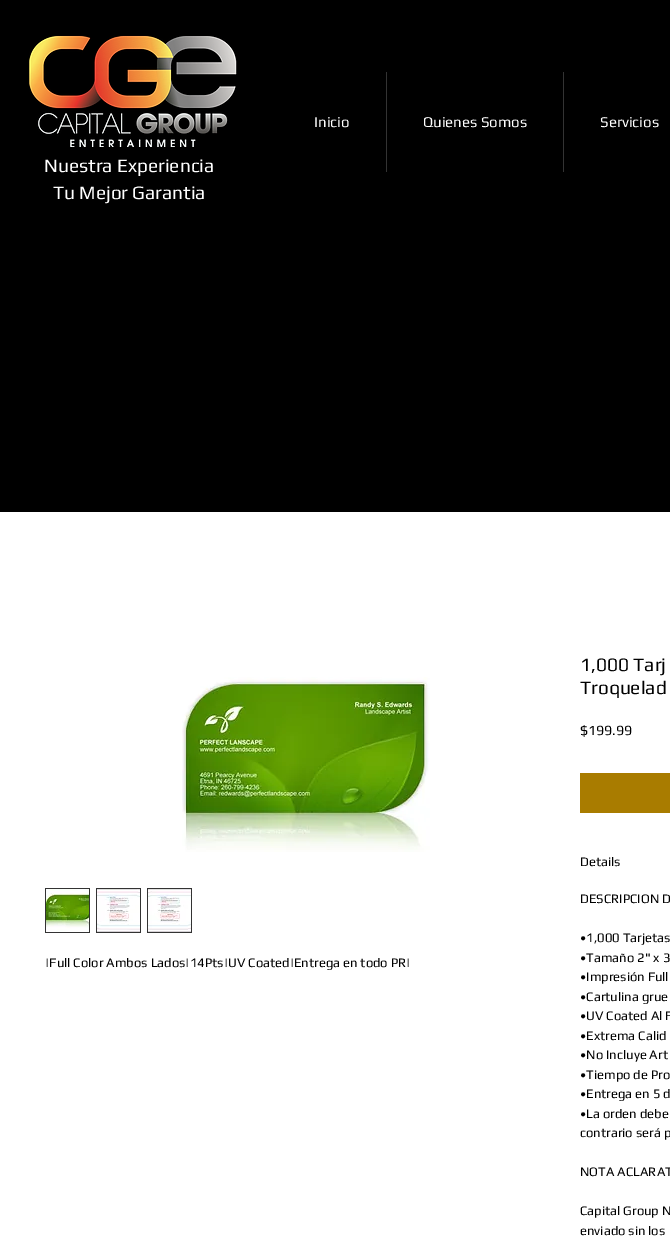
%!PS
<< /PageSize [670 1250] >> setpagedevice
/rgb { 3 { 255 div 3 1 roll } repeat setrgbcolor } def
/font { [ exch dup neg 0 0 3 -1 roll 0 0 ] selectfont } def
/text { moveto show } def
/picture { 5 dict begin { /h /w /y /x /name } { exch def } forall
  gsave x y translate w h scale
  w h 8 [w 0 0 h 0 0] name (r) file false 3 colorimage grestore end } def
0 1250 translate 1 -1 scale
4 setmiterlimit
0 0 0 rgb
0 0 670 1250 rectfill
(img_01.rgb) 29 35 208 112 picture
51 51 51 rgb
386 72 1 100 rectfill
563 72 1 100 rectfill
255 255 255 rgb
0 512 670 738 rectfill
(img_02.rgb) 182 677 248 175 picture
51 51 51 rgb
45 888 45 45 rectfill
(img_03.rgb) 46 889 43 43 picture
96 888 45 45 rectfill
(img_04.rgb) 97 889 43 43 picture
147 888 45 45 rectfill
(img_05.rgb) 148 889 43 43 picture
169 124 0 rgb
580 773 90 40 rectfill
/Play-Regular 15 font
255 255 255 rgb
(Inicio) 314 127 text
(Quienes Somos) 423 127 text
(Servicios) 600 127 text
/Play-Regular 19 font
(Nuestra Experiencia) 44 172 text
(Tu Mejor Garantia) 53 199 text
/Play-Regular 13 font
0 0 0 rgb
(|Full Color Ambos Lados|14Pts|UV Coated|Entrega en todo PR|) 45 967 text
/Play-Regular 19 font
(1,000 Tarj) 580 671 text
(Troquelad) 580 694 text
/Play-Regular 14 font
($199.99) 580 735 text
/Play-Regular 13 font
(Details) 580 866 text
(DESCRIPCION D) 580 903 text
(•1,000 Tarjetas) 580 942 text
(•Tamaño 2" x 3) 580 962 text
(•Impresión Full) 580 981 text
(•Cartulina grue) 580 1001 text
(•UV Coated Al F) 580 1020 text
(•Extrema Calid) 580 1040 text
(•No Incluye Art) 580 1059 text
(•Tiempo de Pro) 580 1079 text
(•Entrega en 5 d) 580 1098 text
(•La orden debe) 580 1118 text
(contrario será p) 580 1137 text
(NOTA ACLARAT) 580 1176 text
(Capital Group N) 580 1215 text
(enviado sin los) 580 1235 text
showpage
